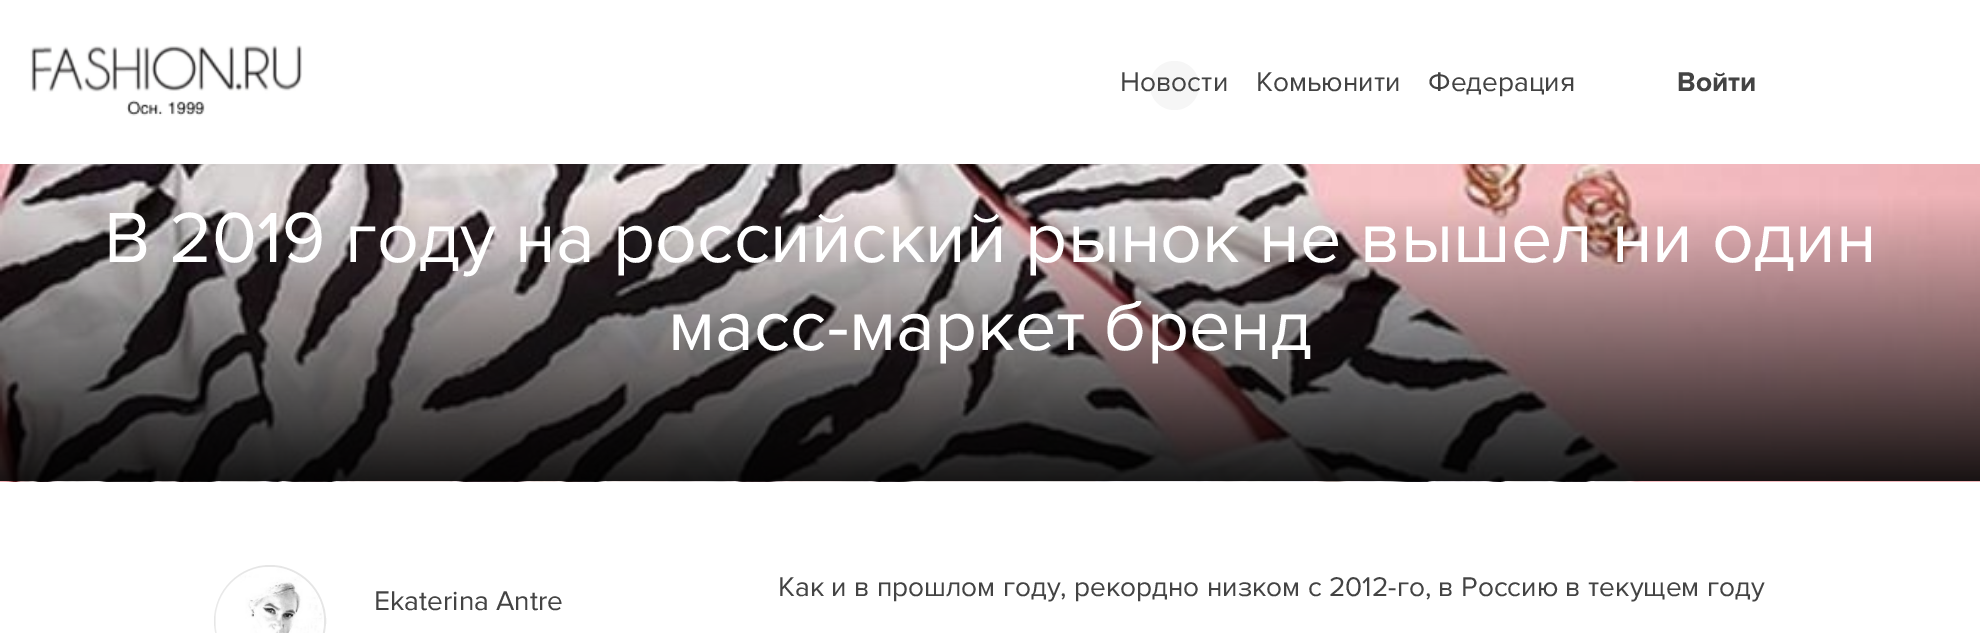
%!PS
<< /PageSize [1980 633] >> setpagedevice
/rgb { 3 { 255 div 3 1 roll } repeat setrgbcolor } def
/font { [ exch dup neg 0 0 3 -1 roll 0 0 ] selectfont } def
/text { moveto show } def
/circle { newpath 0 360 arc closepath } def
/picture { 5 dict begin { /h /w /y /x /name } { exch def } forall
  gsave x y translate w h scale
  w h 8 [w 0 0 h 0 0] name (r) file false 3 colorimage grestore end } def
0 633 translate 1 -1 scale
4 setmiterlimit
255 255 255 rgb
0 0 1980 633 rectfill
(img_01.rgb) 30 45 272 71 picture
246 246 246 rgb
1174.5 85.5 24.5 circle fill
(img_02.rgb) 0 164 1980 318 picture
230 230 230 rgb
2 setlinewidth
270 621 55 circle stroke
(img_03.rgb) 215 567 109 66 picture
/ProximaNova-Regular 28 font
67 67 67 rgb
(Новости) 1120 91 text
(Комьюнити) 1256 91 text
(Федерация) 1428 91 text
/ProximaNova-Bold 28 font
(Войти) 1677 91 text
/ProximaNova-Regular 73.5 font
255 255 255 rgb
(В 2019 году на российский рынок не вышел ни один) 104 262 text
(масс-маркет бренд) 668 350 text
/ProximaNova-Regular 28 font
67 67 67 rgb
(Ekaterina Antre) 374 610 text
(Как и в прошлом году, рекордно низком с 2012-го, в Россию в текущем году) 778 596 text
showpage
